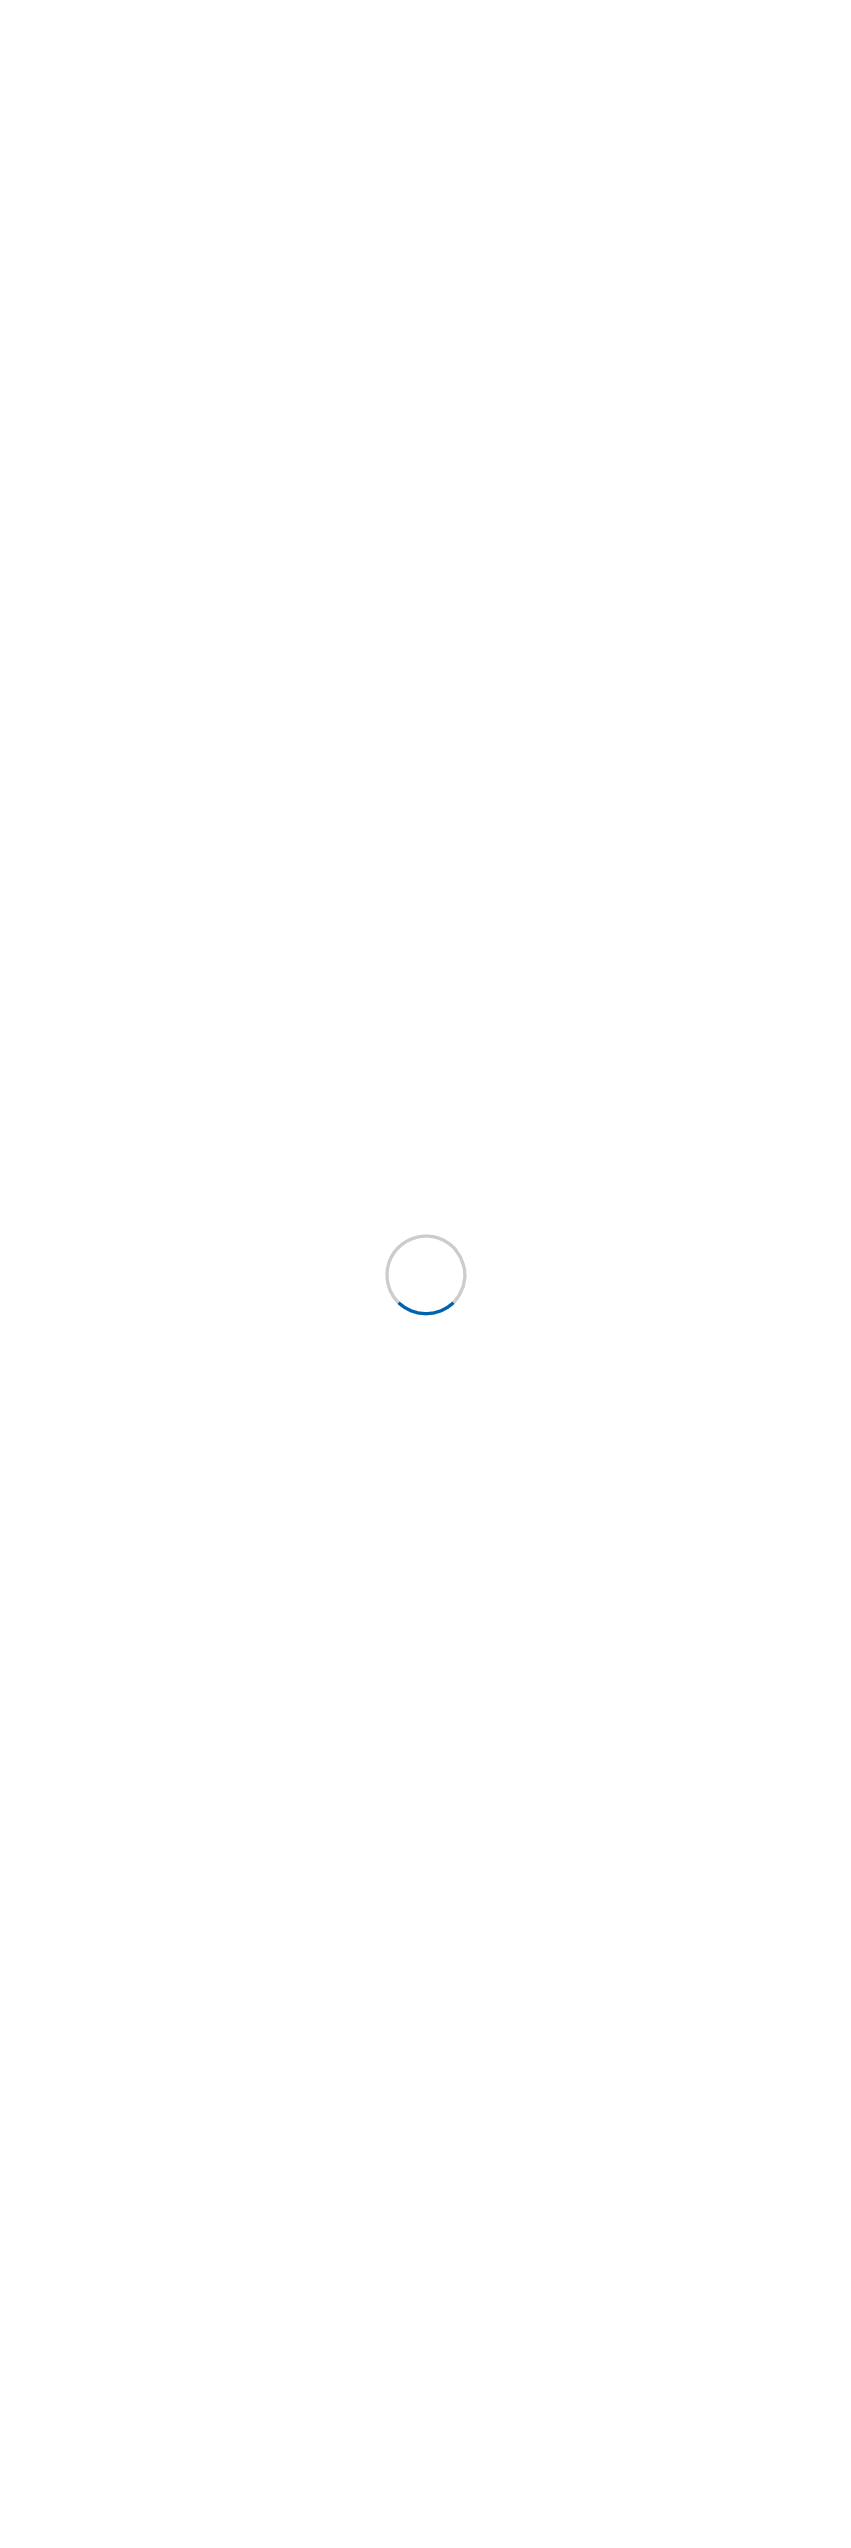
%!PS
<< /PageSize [851 2548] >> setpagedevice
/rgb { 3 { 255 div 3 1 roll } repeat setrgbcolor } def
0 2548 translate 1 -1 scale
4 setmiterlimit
255 255 255 rgb
0 0 851 2548 rectfill
0 99 175 rgb
3 setlinewidth
453.5 1302.5 moveto -15 15 -40 15 -55 0 rcurveto stroke
204 204 204 rgb
398.5 1302.5 moveto -7.5 -7 -11.5 -17 -11.5 -27.5 rcurveto 0 -34.5 42 -52 66.5 -27.5 rcurveto 5.5 5.5 9 12.5 10.5 20 rcurveto 3 12.5 -1.5 26 -10.5 35 rcurveto stroke
showpage
